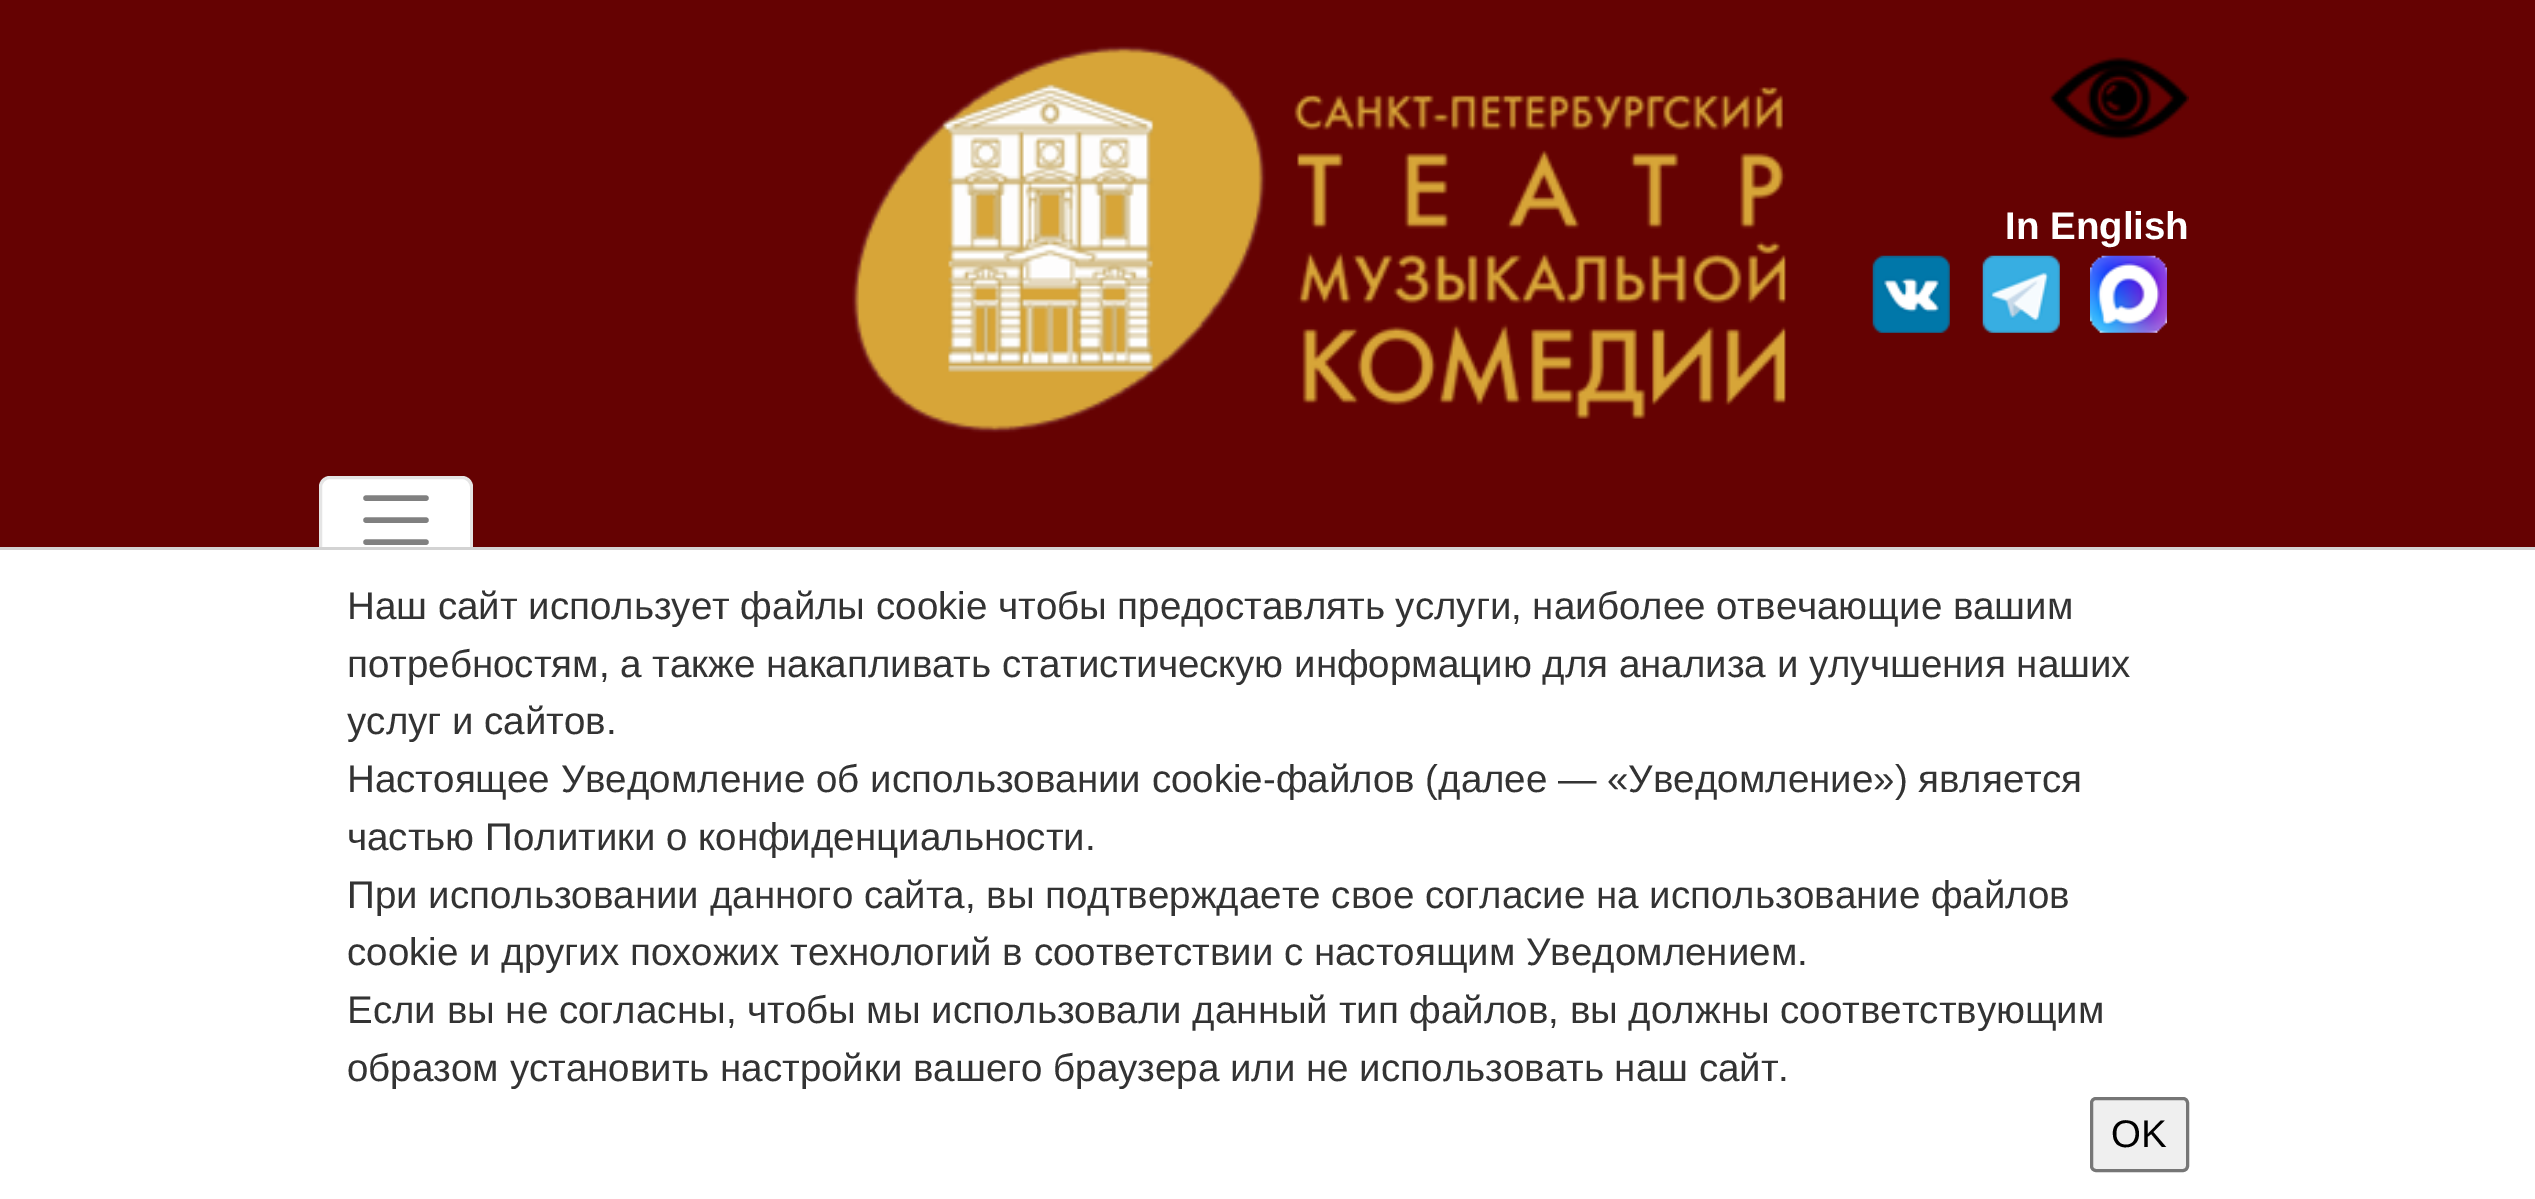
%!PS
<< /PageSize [2535 1199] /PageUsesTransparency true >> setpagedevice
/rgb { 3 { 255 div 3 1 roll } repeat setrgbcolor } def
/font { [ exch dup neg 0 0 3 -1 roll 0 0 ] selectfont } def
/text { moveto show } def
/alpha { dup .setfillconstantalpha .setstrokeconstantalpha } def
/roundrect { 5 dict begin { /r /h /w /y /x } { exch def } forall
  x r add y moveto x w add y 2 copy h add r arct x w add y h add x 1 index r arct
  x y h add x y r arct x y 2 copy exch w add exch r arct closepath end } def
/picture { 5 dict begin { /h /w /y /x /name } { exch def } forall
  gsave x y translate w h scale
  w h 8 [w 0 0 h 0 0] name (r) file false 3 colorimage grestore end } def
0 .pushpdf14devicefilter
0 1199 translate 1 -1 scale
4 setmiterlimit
101 2 2 rgb
0 0 2535 1199 rectfill
(img_01.rgb) 852 46 934 387 picture
(img_02.rgb) 2049 57 140 83 picture
(img_03.rgb) 1872 255 78 78 picture
(img_04.rgb) 1982 255 78 78 picture
(img_05.rgb) 2090 255 77 78 picture
255 255 255 rgb
319 476 154 99 11 roundrect fill
0.1 alpha
0 0 0 rgb
3 setlinewidth
320.5 477.5 151 96 9.5 roundrect stroke
1 alpha
128 128 128 rgb
5.5 setlinewidth
1 setlinecap
366 498 moveto 60 0 rlineto 366 520 moveto 60 0 rlineto 366 542 moveto 60 0 rlineto stroke
255 255 255 rgb
0 550 2535 649 rectfill
211 211 211 rgb
0 547 2535 3 rectfill
239 239 239 rgb
2091.5 1098.5 96 72 4.5 roundrect gsave fill grestore
118 118 118 rgb
3 setlinewidth
0 setlinecap
stroke
/LiberationSans-Bold 38.5 font
255 255 255 rgb
(In English) 2005 239 text
/LiberationSans-Regular 38.5 font
51 51 51 rgb
(Наш сайт использует файлы cookie чтобы предоставлять услуги, наиболее отвечающие вашим) 347 619 text
(потребностям, а также накапливать статистическую информацию для анализа и улучшения наших) 347 677 text
(услуг и сайтов.) 347 734 text
(Настоящее Уведомление об использовании cookie-файлов \(далее — «Уведомление»\) является) 347 792 text
(частью Политики о конфиденциальности.) 347 850 text
(При использовании данного сайта, вы подтверждаете свое согласие на использование файлов) 347 908 text
(cookie и других похожих технологий в соответствии с настоящим Уведомлением.) 347 965 text
(Если вы не согласны, чтобы мы использовали данный тип файлов, вы должны соответствующим) 347 1023 text
(образом установить настройки вашего браузера или не использовать наш сайт.) 347 1081 text
0 0 0 rgb
(OK) 2111 1147 text
.poppdf14devicefilter showpage
